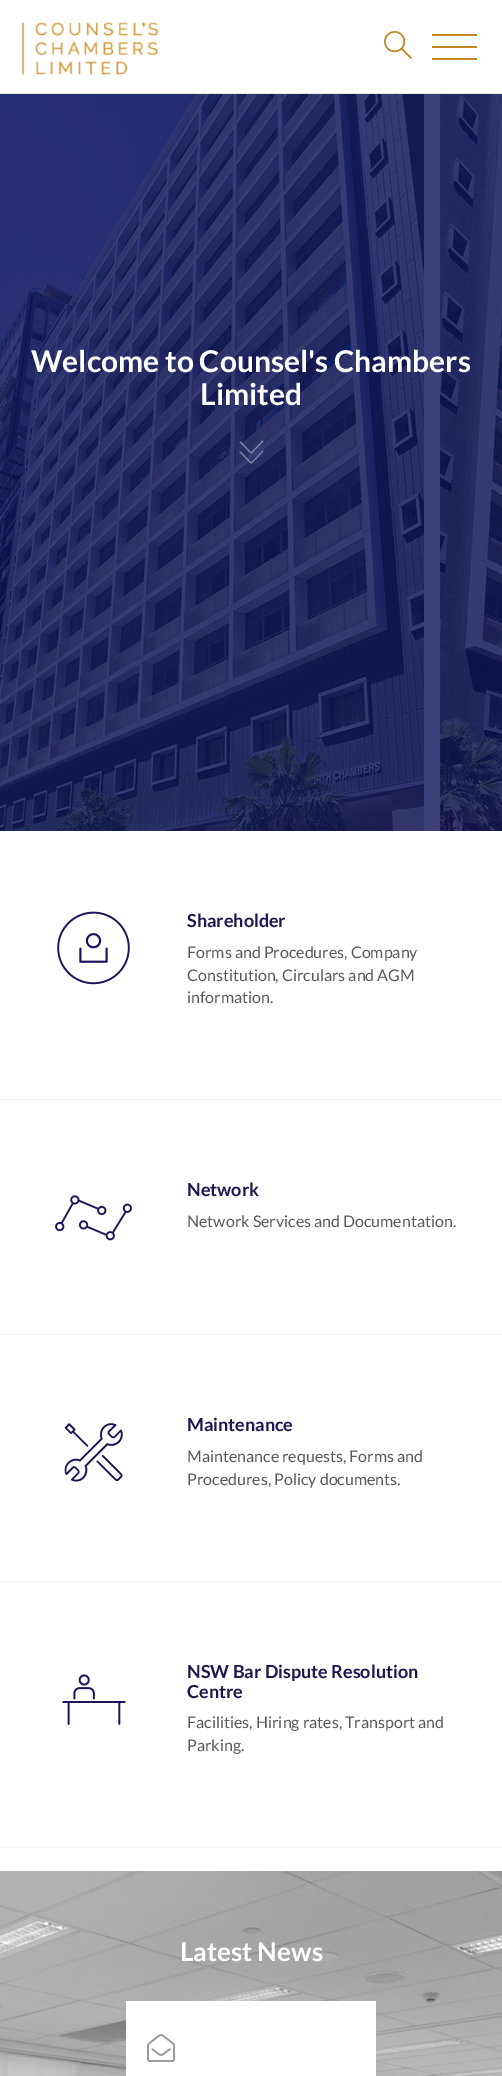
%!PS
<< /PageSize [502 2076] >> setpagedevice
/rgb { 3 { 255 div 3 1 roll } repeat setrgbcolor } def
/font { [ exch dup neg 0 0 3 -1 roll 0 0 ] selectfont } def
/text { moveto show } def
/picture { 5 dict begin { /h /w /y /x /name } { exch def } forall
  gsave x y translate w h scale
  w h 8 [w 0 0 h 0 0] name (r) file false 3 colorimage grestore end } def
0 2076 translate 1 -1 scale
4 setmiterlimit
255 255 255 rgb
0 0 502 2076 rectfill
230 230 230 rgb
0 93 502 1 rectfill
(img_01.rgb) 21 22 138 54 picture
(img_02.rgb) 384 31 28 28 picture
195 135 37 rgb
432 34 45 2 rectfill
432 46 45 2 rectfill
432 58 45 2 rectfill
(img_03.rgb) 0 94 502 737 picture
(img_04.rgb) 239 440 25 24 picture
244 244 244 rgb
0 1099 502 1 rectfill
(img_05.rgb) 57 911 73 74 picture
0 1334 502 1 rectfill
(img_06.rgb) 54 1195 79 46 picture
0 1581 502 1 rectfill
(img_07.rgb) 64 1423 59 59 picture
0 1847 502 1 rectfill
(img_08.rgb) 62 1674 64 51 picture
(img_09.rgb) 0 1871 502 205 picture
255 255 255 rgb
126 2001 250 75 rectfill
(img_10.rgb) 147 2034 28 28 picture
/Lato-Bold 30 font
(Welcome to Counsel's Chambers) 31 372 text
(Limited) 200 405 text
/Lato-Bold 18 font
29 24 82 rgb
(Shareholder) 187 927 text
/Lato-Regular 16 font
89 89 89 rgb
(Forms and Procedures, Company) 187 958 text
(Constitution, Circulars and AGM) 187 981 text
(information.) 187 1003 text
/Lato-Bold 18 font
29 24 82 rgb
(Network) 187 1196 text
/Lato-Regular 16 font
89 89 89 rgb
(Network Services and Documentation.) 187 1227 text
/Lato-Bold 18 font
29 24 82 rgb
(Maintenance) 187 1431 text
/Lato-Regular 16 font
89 89 89 rgb
(Maintenance requests, Forms and) 187 1462 text
(Procedures, Policy documents.) 187 1485 text
/Lato-Bold 18 font
29 24 82 rgb
(NSW Bar Dispute Resolution) 187 1678 text
(Centre) 187 1698 text
/Lato-Regular 16 font
89 89 89 rgb
(Facilities, Hiring rates, Transport and) 187 1728 text
(Parking.) 187 1751 text
/Lato-Bold 26 font
255 255 255 rgb
(Latest News) 180 1961 text
showpage
